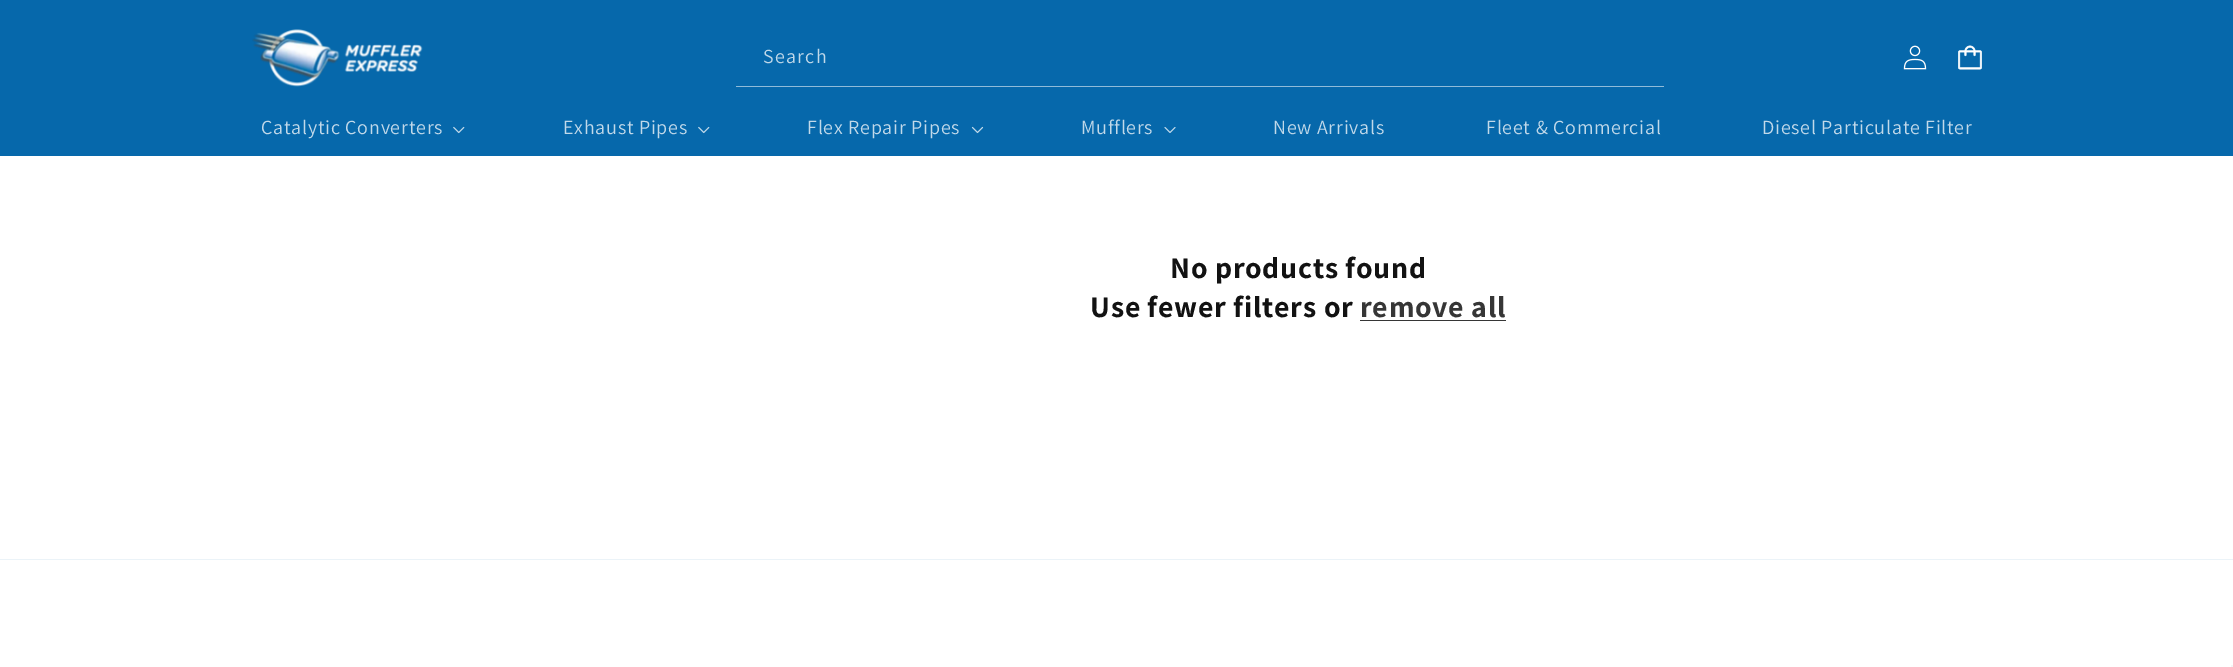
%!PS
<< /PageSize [2233 667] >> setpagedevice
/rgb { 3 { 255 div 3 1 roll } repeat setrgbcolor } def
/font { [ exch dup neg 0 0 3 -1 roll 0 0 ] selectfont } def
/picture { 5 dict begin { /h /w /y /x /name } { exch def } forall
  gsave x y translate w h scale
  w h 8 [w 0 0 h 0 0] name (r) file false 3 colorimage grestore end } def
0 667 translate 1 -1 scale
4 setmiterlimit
255 255 255 rgb
0 0 2233 667 rectfill
6 104 171 rgb
0 0 2233 156 rectfill
(img_01.rgb) 252 29 171 58 picture
143 187 217 rgb
736 86 928 1 rectfill
(img_02.rgb) 1903 45 24 25 picture
(img_03.rgb) 1958 45 24 25 picture
(img_04.rgb) 453 126 12 8 picture
(img_04.rgb) 698 126 12 8 picture
(img_05.rgb) 971 126 13 8 picture
(img_06.rgb) 1164 127 12 6 picture
54 54 54 rgb
1360 320 146 1 rectfill
235 243 248 rgb
0 559 2233 1 rectfill
245 245 245 rgb
2231 665 2 2 rectfill
/Assistant-Regular 20 font
193 217 234 rgb
763 63 moveto 1.25 0 (Search) ashow
261 134 moveto 0.75 0 (Catalytic Converters) ashow
563 134 moveto 0.75 0 (Exhaust Pipes) ashow
807 134 moveto 0.75 0 (Flex Repair Pipes) ashow
1081 134 moveto 0.75 0 (Mufflers) ashow
1273 134 moveto 0.75 0 (New Arrivals) ashow
1486 134 moveto 0.75 0 (Fleet & Commercial) ashow
1762 134 moveto 0.75 0 (Diesel Particulate Filter) ashow
/Assistant-Bold 30 font
18 18 18 rgb
1170 278 moveto 0.75 0 (No products found) ashow
1090 317 moveto 0.75 0 (Use fewer filters or) ashow
54 54 54 rgb
1360 317 moveto 0.75 0 (remove all) ashow
showpage
